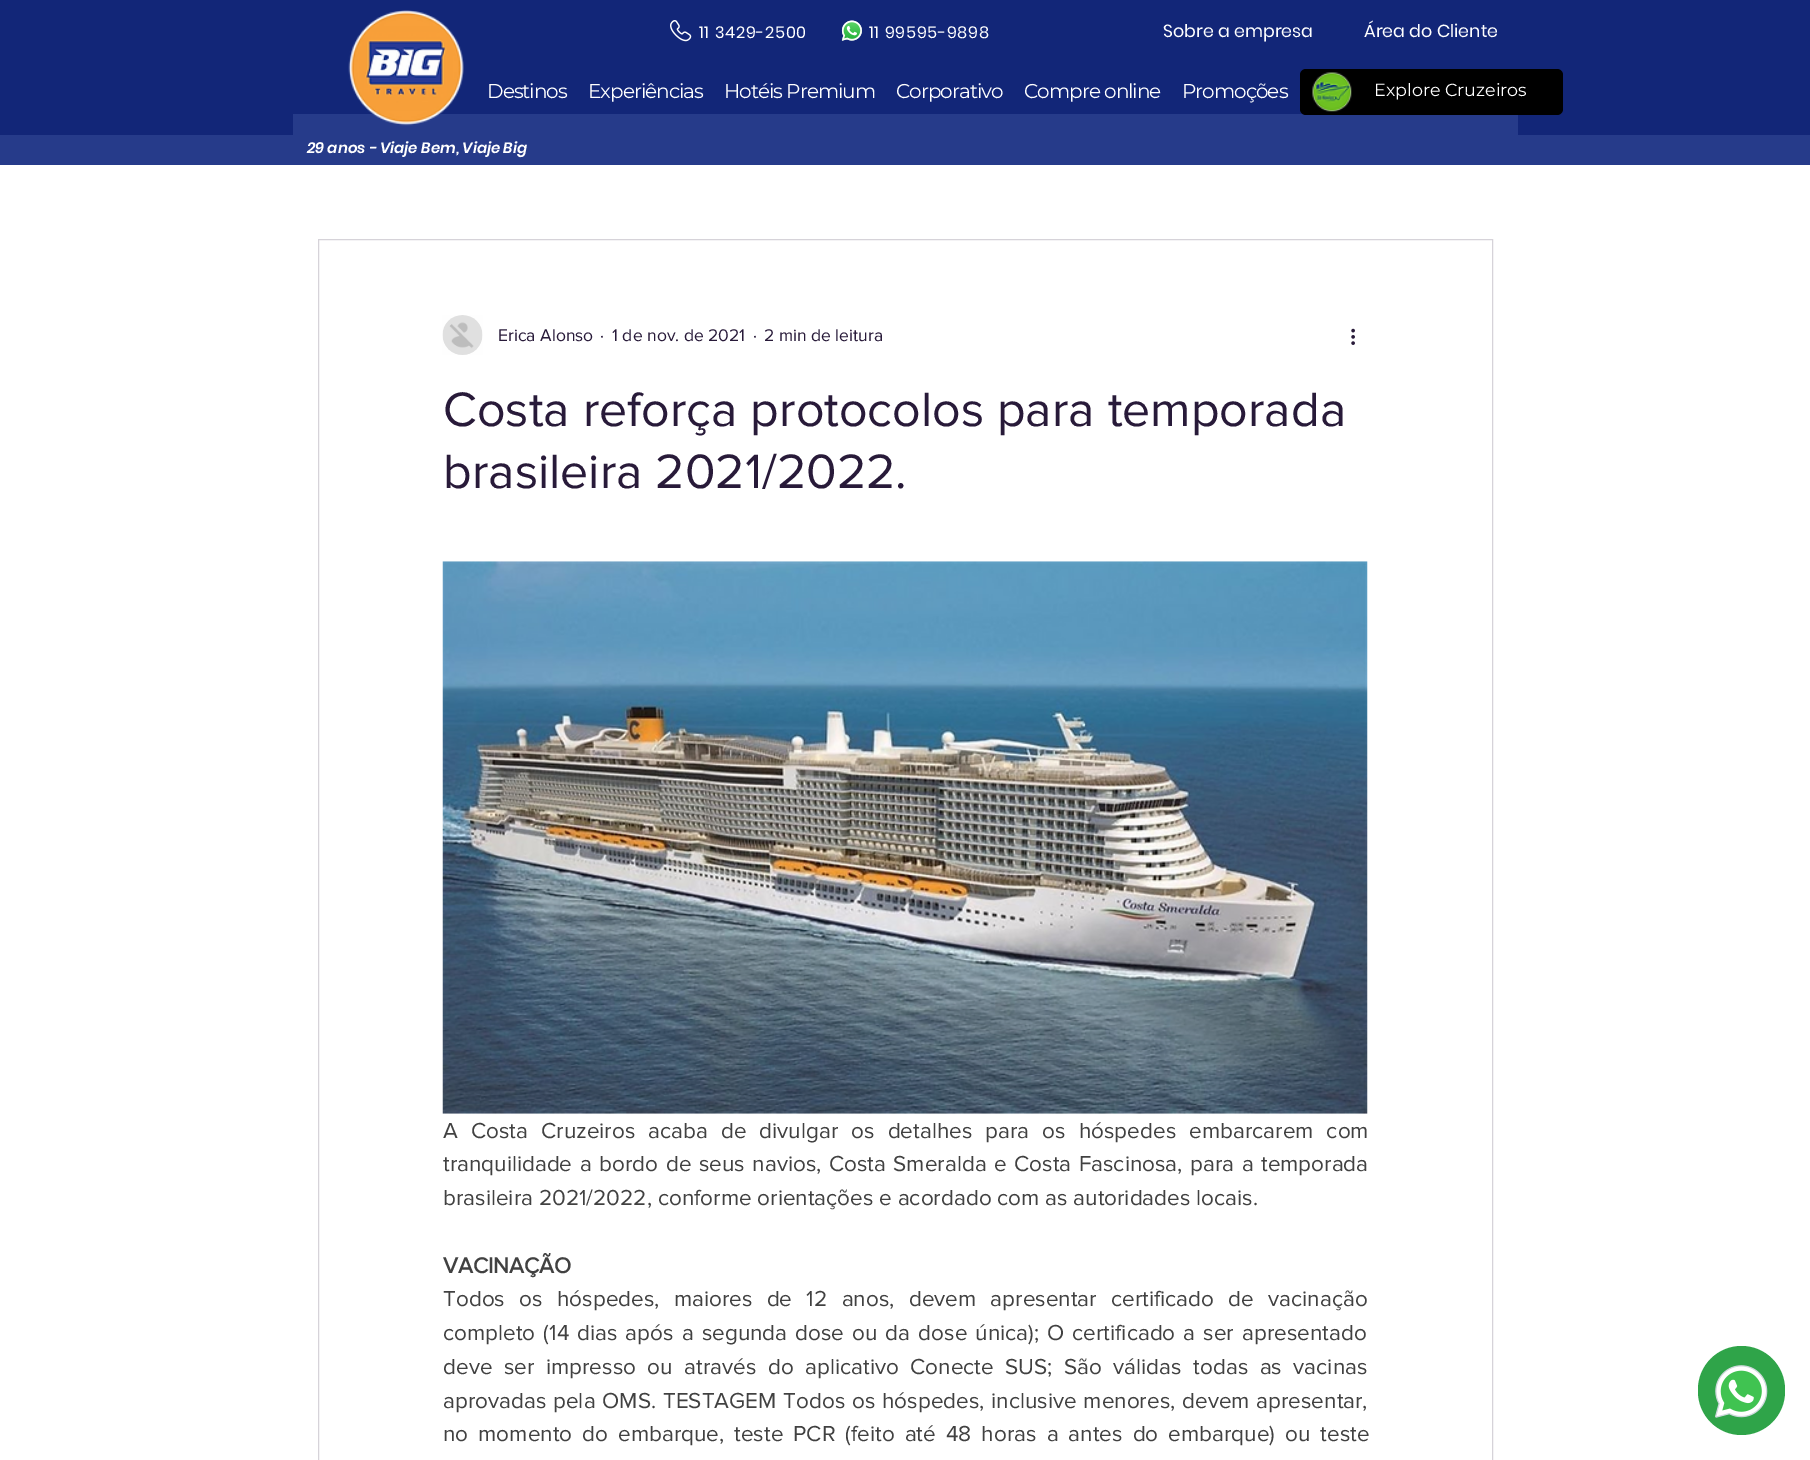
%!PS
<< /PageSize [1810 1460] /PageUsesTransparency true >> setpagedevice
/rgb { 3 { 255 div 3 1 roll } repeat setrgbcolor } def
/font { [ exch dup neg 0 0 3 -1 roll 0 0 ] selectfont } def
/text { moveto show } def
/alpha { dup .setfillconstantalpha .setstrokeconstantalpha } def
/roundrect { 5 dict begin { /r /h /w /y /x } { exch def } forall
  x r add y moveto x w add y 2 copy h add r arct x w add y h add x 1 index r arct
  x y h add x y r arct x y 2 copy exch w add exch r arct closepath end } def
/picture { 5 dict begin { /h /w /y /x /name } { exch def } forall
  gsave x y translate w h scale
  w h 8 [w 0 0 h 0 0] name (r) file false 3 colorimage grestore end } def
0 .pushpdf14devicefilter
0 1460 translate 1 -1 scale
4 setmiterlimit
255 255 255 rgb
0 0 1810 1460 rectfill
120 111 130 rgb
0 0 1810 135 rectfill
254 254 254 rgb
293 114 1225 21 rectfill
0.85 alpha
0 25 118 rgb
0 0 1810 165 rectfill
1 alpha
(img_01.rgb) 348 10 116 116 picture
(img_02.rgb) 670 20 22 22 picture
(img_03.rgb) 841 20 21 21 picture
0 0 0 rgb
1300 69 263 46 6 roundrect fill
(img_04.rgb) 1312 72 40 40 picture
214 211 217 rgb
318.5 239.5 1174 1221 rectstroke
(img_05.rgb) 442 315 41 40 picture
(img_06.rgb) 1351 328 4 17 picture
(img_07.rgb) 442 561 926 553 picture
47 164 73 rgb
1698 1346 87 89 43.5 roundrect fill
(img_08.rgb) 1715 1365 53 53 picture
/Poppins-Regular 16.25 font
255 255 255 rgb
699 38 moveto 0.75 0 (11 3429-2500) ashow
869 38 moveto 0.75 0 (11 99595-9898) ashow
/Poppins-Regular 17.5 font
(Sobre a empresa) 1163 37 text
(Área do Cliente) 1364 37 text
/Montserrat-Regular 20 font
487 98 moveto -1 0 (Destinos) ashow
588 98 moveto -1 0 (Experiências) ashow
724 98 moveto -1 0 (Hotéis Premium) ashow
896 98 moveto -1 0 (Corporativo) ashow
1024 98 moveto -1 0 (Compre online) ashow
1182 98 moveto -1 0 (Promoções) ashow
/Montserrat-Regular 17.5 font
(Explore Cruzeiros) 1374 96 text
/Poppins-SemiBoldItalic 15 font
(29 anos - Viaje Bem, Viaje Big) 307 153 text
/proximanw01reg-Regular 17.5 font
40 26 57 rgb
(Erica Alonso) 498 341 text
(·) 600 341 text
(1 de nov. de 2021) 612 341 text
(·) 753 341 text
(2 min de leitura) 764 341 text
/proximanw01reg-Regular 50 font
(Costa reforça protocolos para temporada) 443 426 text
(brasileira 2021/2022.) 443 488 text
/proximanw01reg-Regular 22.5 font
65 65 65 rgb
443 1138 moveto 7.25 0 32 (A Costa Cruzeiros acaba de divulgar os detalhes para os hóspedes embarcarem com) widthshow
443 1171 moveto 1.75 0 32 (tranquilidade a bordo de seus navios, Costa Smeralda e Costa Fascinosa, para a temporada) widthshow
(brasileira 2021/2022, conforme orientações e acordado com as autoridades locais.) 443 1205 text
/proximanw01reg-Bold 22.5 font
(VACINAÇÃO) 443 1273 text
/proximanw01reg-Regular 22.5 font
443 1306 moveto 8.5 0 32 (Todos os hóspedes, maiores de 12 anos, devem apresentar certificado de vacinação) widthshow
443 1340 moveto 2.25 0 32 (completo \(14 dias após a segunda dose ou da dose única\); O certificado a ser apresentado) widthshow
443 1374 moveto 5.75 0 32 (deve ser impresso ou através do aplicativo Conecte SUS; São válidas todas as vacinas) widthshow
443 1408 moveto 1 0 32 (aprovadas pela OMS. TESTAGEM Todos os hóspedes, inclusive menores, devem apresentar,) widthshow
443 1441 moveto 4.25 0 32 (no momento do embarque, teste PCR \(feito até 48 horas a antes do embarque\) ou teste) widthshow
.poppdf14devicefilter showpage
